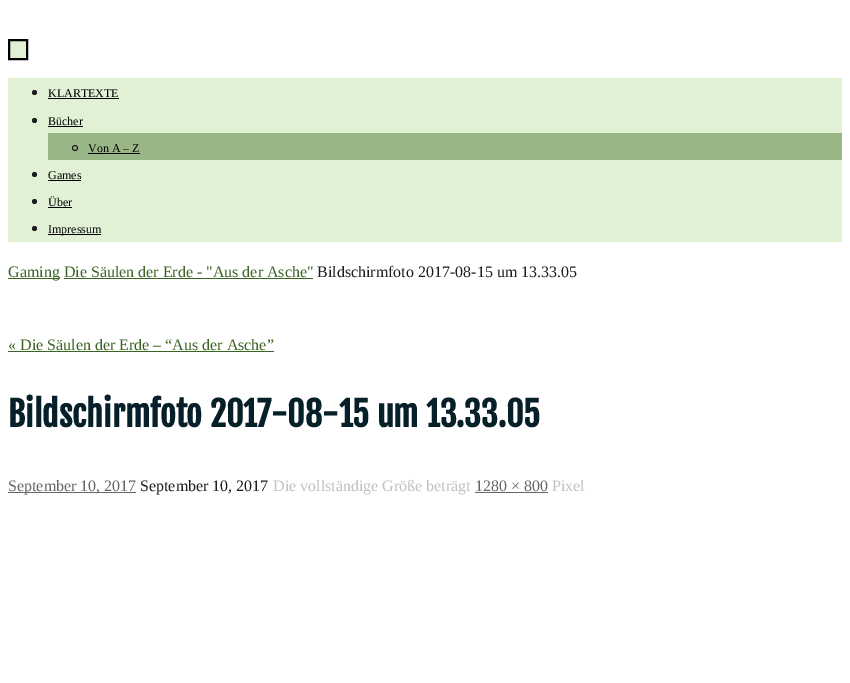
%!PS
<< /PageSize [850 683] >> setpagedevice
/rgb { 3 { 255 div 3 1 roll } repeat setrgbcolor } def
/font { [ exch dup neg 0 0 3 -1 roll 0 0 ] selectfont } def
/text { moveto show } def
/circle { newpath 0 360 arc closepath } def
0 683 translate 1 -1 scale
4 setmiterlimit
255 255 255 rgb
0 0 850 683 rectfill
224 241 213 rgb
9 40 moveto 18 0 rlineto 0 19 rlineto -18 0 rlineto closepath gsave fill grestore
0 0 0 rgb
2 setlinewidth
stroke
224 241 213 rgb
8 78 834 164 rectfill
29 29 29 rgb
34.5 92.5 2.5 circle fill
0 0 0 rgb
48 98 71 1 rectfill
29 29 29 rgb
34.5 120.5 2.5 circle fill
0 0 0 rgb
48 126 35 1 rectfill
153 182 134 rgb
48 133 794 27 rectfill
29 29 29 rgb
1 setlinewidth
75 148 2.5 circle stroke
0 0 0 rgb
88 153 52 1 rectfill
29 29 29 rgb
34.5 174.5 2.5 circle fill
0 0 0 rgb
48 180 33 1 rectfill
29 29 29 rgb
34.5 201.5 2.5 circle fill
0 0 0 rgb
48 207 24 1 rectfill
29 29 29 rgb
34.5 228.5 2.5 circle fill
0 0 0 rgb
48 234 53 1 rectfill
59 99 34 rgb
8 278 52 1 rectfill
64 278 249 1 rectfill
8 351 266 1 rectfill
102 102 102 rgb
8 492 128 1 rectfill
475 492 73 1 rectfill
/LiberationSerif-Regular 12 font
0 0 0 rgb
(KLARTEXTE) 48 97 text
(Bücher) 48 125 text
(Von A – Z) 88 152 text
(Games) 48 179 text
(Über) 48 206 text
(Impressum) 48 233 text
/LiberationSerif-Regular 16 font
59 99 34 rgb
(Gaming Die Säulen der Erde - "Aus der Asche") 8 277 text
29 29 29 rgb
(Bildschirmfoto 2017-08-15 um 13.33.05) 317 277 text
59 99 34 rgb
(« Die Säulen der Erde – “Aus der Asche”) 8 350 text
/FjallaOne-Bold 34 font
6 31 41 rgb
(Bildschirmfoto 2017-08-15 um 13.33.05) 8 427 text
/LiberationSerif-Regular 16 font
102 102 102 rgb
(September 10, 2017) 8 491 text
29 29 29 rgb
(September 10, 2017) 140 491 text
193 193 193 rgb
(Die vollständige Größe beträgt) 273 491 text
102 102 102 rgb
(1280 × 800) 475 491 text
193 193 193 rgb
(Pixel) 552 491 text
showpage
